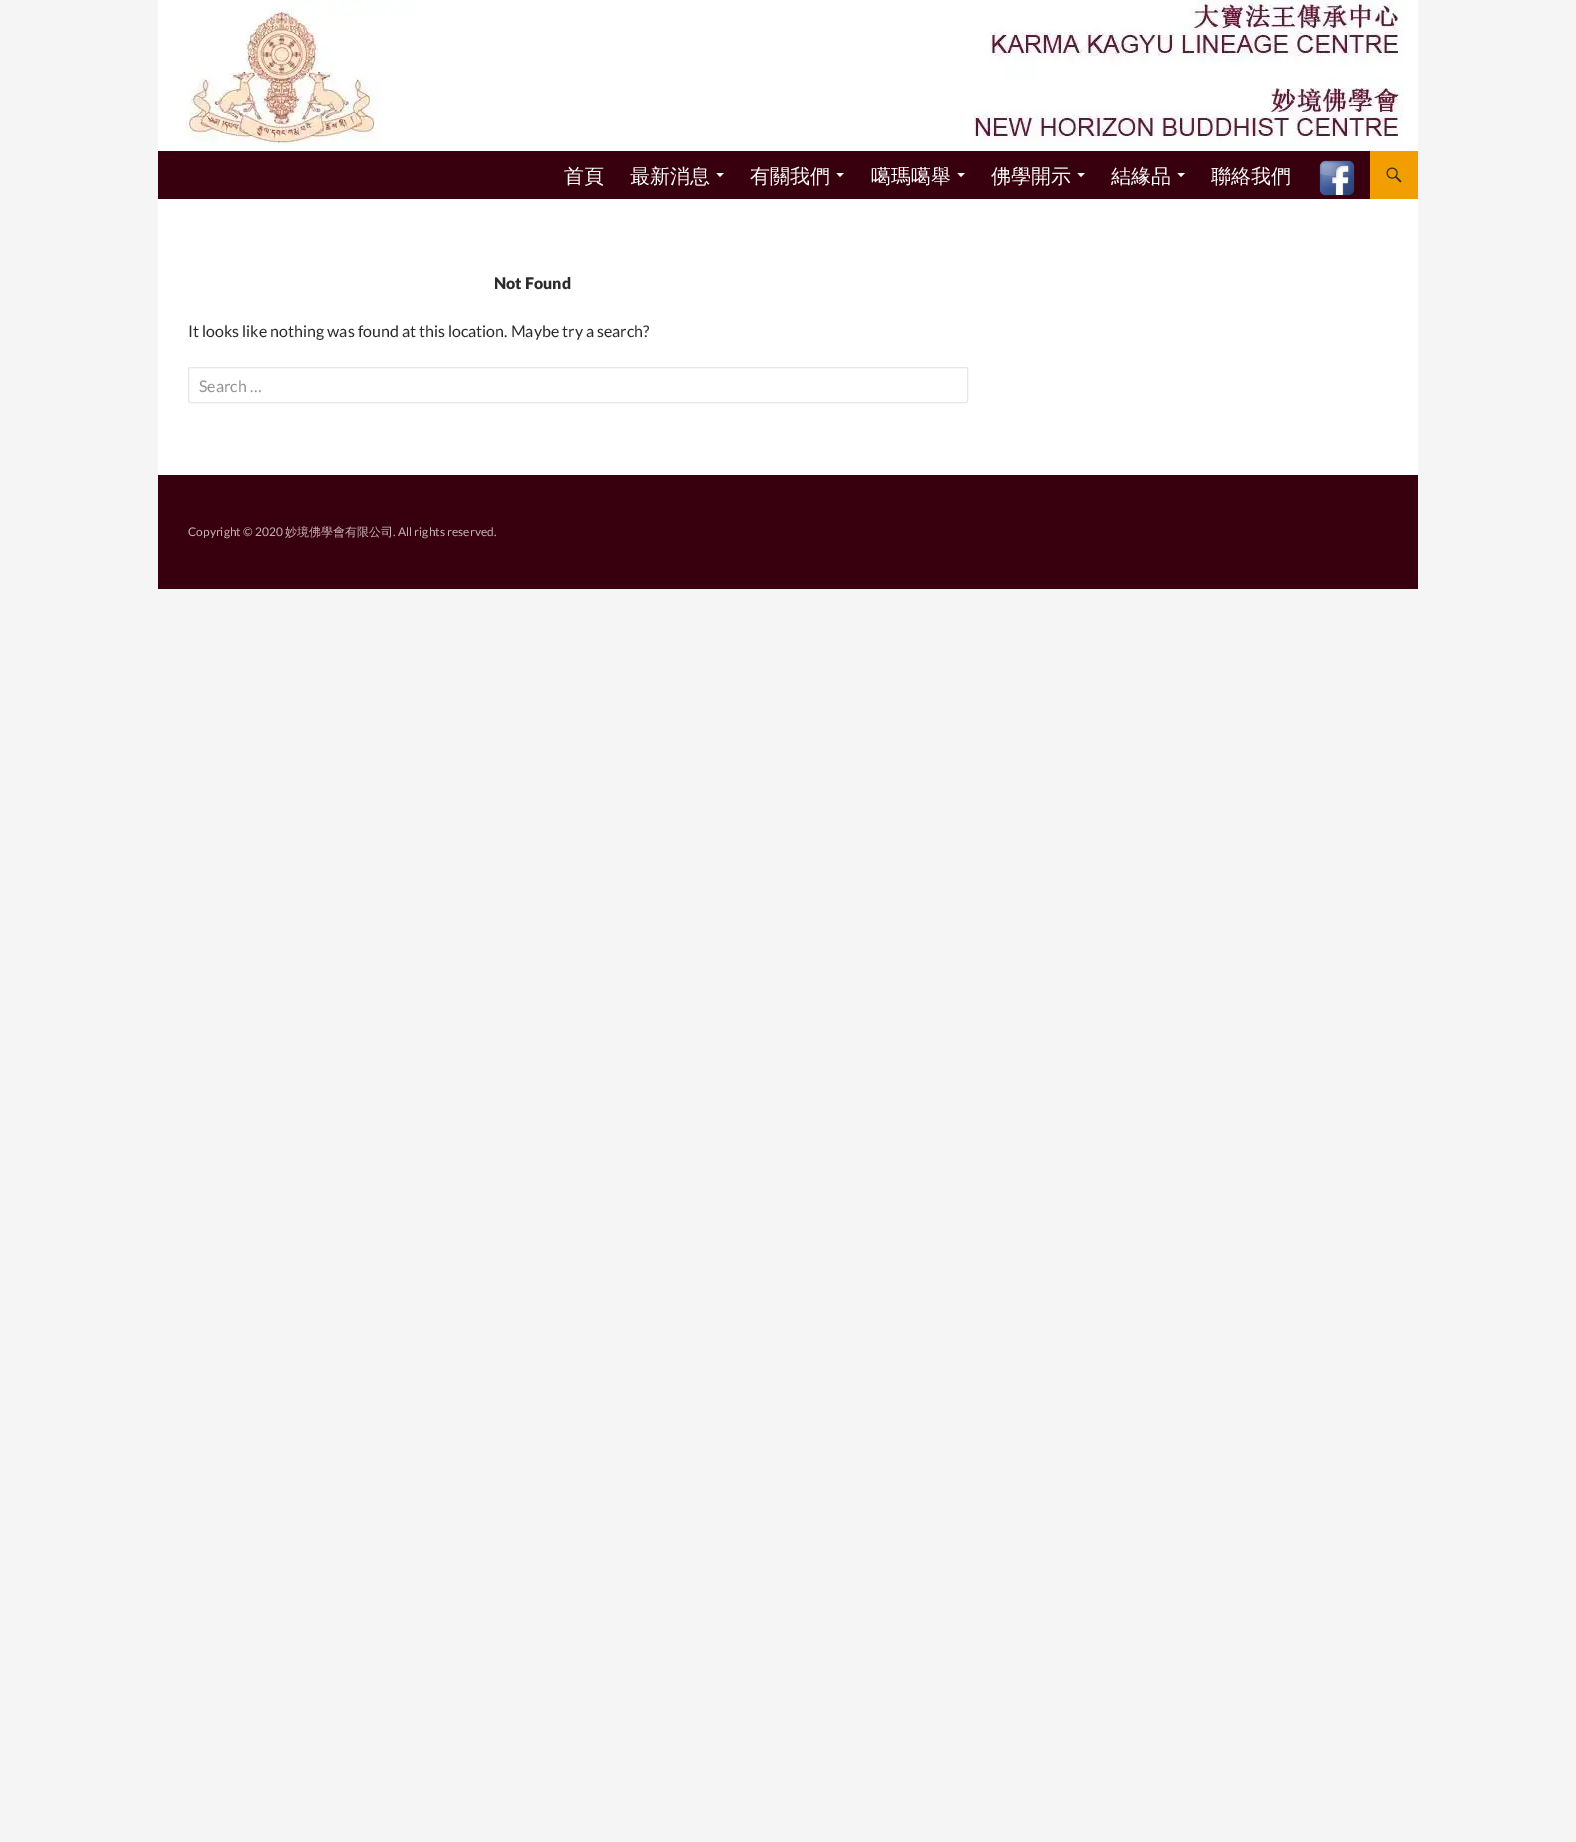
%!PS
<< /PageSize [1576 1842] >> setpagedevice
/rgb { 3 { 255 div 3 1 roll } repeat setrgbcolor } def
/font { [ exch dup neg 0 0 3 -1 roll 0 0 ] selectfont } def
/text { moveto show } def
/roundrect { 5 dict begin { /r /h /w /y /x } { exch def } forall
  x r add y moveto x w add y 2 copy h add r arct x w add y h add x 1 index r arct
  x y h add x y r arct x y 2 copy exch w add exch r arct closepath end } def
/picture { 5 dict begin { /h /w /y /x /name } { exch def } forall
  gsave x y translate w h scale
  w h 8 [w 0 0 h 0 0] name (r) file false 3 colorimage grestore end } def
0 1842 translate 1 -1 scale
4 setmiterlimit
245 245 245 rgb
0 0 1576 1842 rectfill
255 255 255 rgb
158 0 1260 475 rectfill
(img_01.rgb) 185 0 1219 144 picture
56 0 14 rgb
158 151 1212 48 rectfill
255 255 255 rgb
716.5 173 moveto 3.5 4 rlineto 4 -4 rlineto closepath fill
836.5 173 moveto 3.5 4 rlineto 4 -4 rlineto closepath fill
957.5 173 moveto 3.5 4 rlineto 4 -4 rlineto closepath fill
1077.5 173 moveto 3.5 4 rlineto 4 -4 rlineto closepath fill
1177.5 173 moveto 3.5 4 rlineto 4 -4 rlineto closepath fill
(img_02.rgb) 1319 160 36 36 picture
242 157 0 rgb
1370 151 48 48 rectfill
(img_03.rgb) 1386 167 16 16 picture
230 230 230 rgb
188.5 367.5 779 35 1.5 roundrect stroke
56 0 14 rgb
158 475 1260 114 rectfill
/WenQuanYiZenHei-Medium 20 font
255 255 255 rgb
(首頁) 564 183 text
(最新消息) 630 183 text
(有關我們) 750 183 text
(噶瑪噶舉) 871 183 text
(佛學開示) 991 183 text
(結緣品) 1111 183 text
(聯絡我們) 1211 183 text
/Lato-Black 16 font
43 43 43 rgb
(Not Found) 494 289 text
/Lato-Regular 16 font
(It looks like nothing was found at this location. Maybe try a search?) 188 337 text
147 147 147 rgb
(Search …) 199 392 text
/Lato-Regular 12 font
195 179 183 rgb
(Copyright © 2020) 188 536 text
/WenQuanYiZenHei-Medium 12 font
(妙境佛學會有限公司) 285 536 text
/Lato-Regular 12 font
(. All rights reserved.) 393 536 text
showpage
